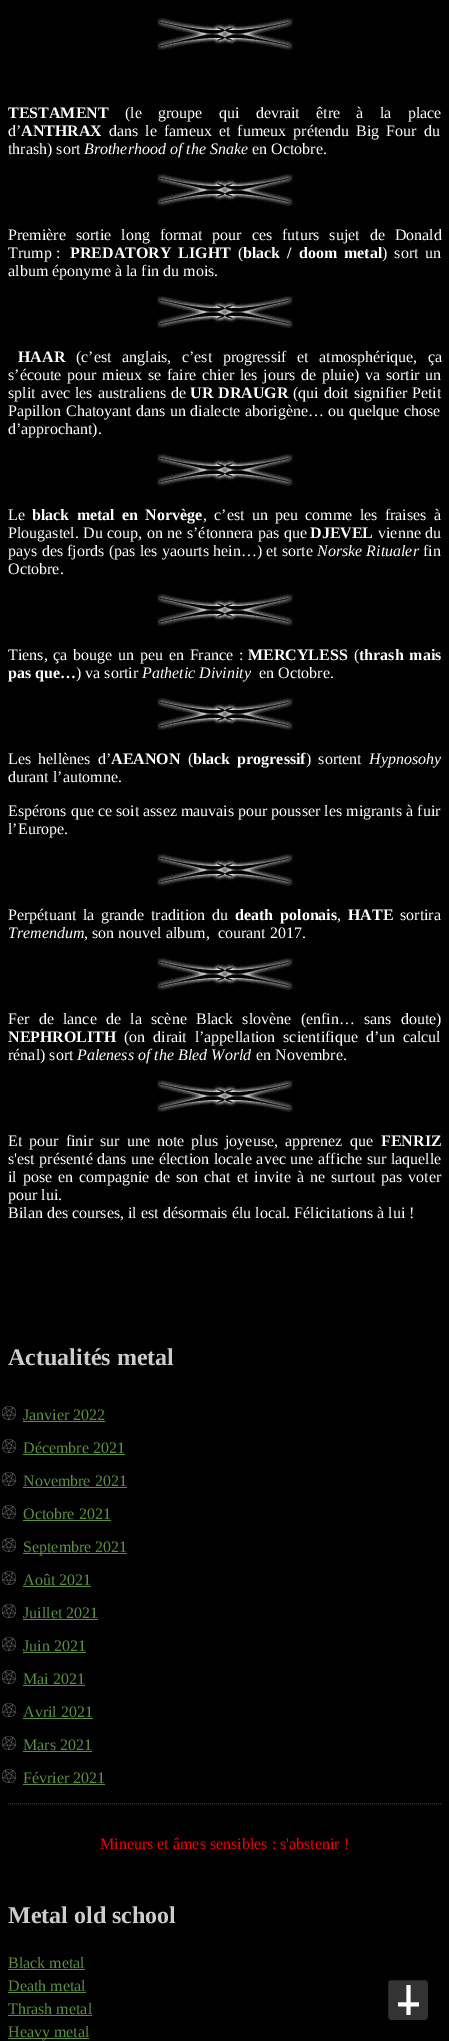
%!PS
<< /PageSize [449 2041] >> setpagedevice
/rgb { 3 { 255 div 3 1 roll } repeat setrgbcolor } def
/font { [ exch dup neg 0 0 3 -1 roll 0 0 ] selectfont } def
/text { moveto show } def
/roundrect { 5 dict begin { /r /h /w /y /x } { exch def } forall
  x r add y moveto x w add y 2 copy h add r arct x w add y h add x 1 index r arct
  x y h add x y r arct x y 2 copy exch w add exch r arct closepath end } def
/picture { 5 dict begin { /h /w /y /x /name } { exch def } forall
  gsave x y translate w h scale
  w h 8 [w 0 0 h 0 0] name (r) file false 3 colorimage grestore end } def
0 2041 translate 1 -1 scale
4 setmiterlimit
0 0 0 rgb
0 0 449 2041 rectfill
(img_01.rgb) 157 18 136 32 picture
(img_01.rgb) 157 174 136 32 picture
(img_01.rgb) 157 296 136 32 picture
(img_01.rgb) 157 454 136 32 picture
(img_01.rgb) 157 594 136 32 picture
(img_01.rgb) 157 698 136 32 picture
(img_01.rgb) 157 854 136 32 picture
(img_01.rgb) 157 958 136 32 picture
(img_01.rgb) 157 1080 136 32 picture
(img_02.rgb) 2 1406 14 14 picture
89 143 62 rgb
23 1421 82 1 rectfill
(img_02.rgb) 2 1439 14 14 picture
23 1454 102 1 rectfill
(img_02.rgb) 2 1472 14 14 picture
23 1487 104 1 rectfill
(img_02.rgb) 2 1505 14 14 picture
23 1520 88 1 rectfill
(img_02.rgb) 2 1538 14 14 picture
23 1553 104 1 rectfill
(img_02.rgb) 2 1571 14 14 picture
23 1586 68 1 rectfill
(img_02.rgb) 2 1604 14 14 picture
23 1619 75 1 rectfill
(img_02.rgb) 2 1637 14 14 picture
23 1652 63 1 rectfill
(img_02.rgb) 2 1670 14 14 picture
23 1685 62 1 rectfill
(img_02.rgb) 2 1703 14 14 picture
23 1718 70 1 rectfill
(img_02.rgb) 2 1736 14 14 picture
23 1751 69 1 rectfill
(img_02.rgb) 2 1769 14 14 picture
23 1784 82 1 rectfill
51 51 51 rgb
[1 1] 0 setdash
8 1803.5 moveto 433 0 rlineto stroke
89 143 62 rgb
8 1969 77 1 rectfill
8 1992 78 1 rectfill
8 2015 84 1 rectfill
8 2038 81 1 rectfill
51 51 51 rgb
387 1979 42 42 4 roundrect fill
(img_03.rgb) 398 1985 21 30 picture
0 0 0 rgb
[] 0 setdash
387.5 1979.5 41 41 3.5 roundrect stroke
/LiberationSerif-Bold 16 font
255 255 255 rgb
(TESTAMENT) 8 118 text
/LiberationSerif-Regular 16 font
125 118 moveto 12.25 0 32 (\(le groupe qui devrait être à la place) widthshow
(d’) 8 136 text
/LiberationSerif-Bold 16 font
(ANTHRAX) 21 136 text
/LiberationSerif-Regular 16 font
109 136 moveto 3 0 32 (dans le fameux et fumeux prétendu Big Four du) widthshow
(thrash\) sort) 8 154 text
/LiberationSerif-Italic 16 font
(Brotherhood of the Snake) 84 154 text
/LiberationSerif-Regular 16 font
(en Octobre.) 252 154 text
8 240 moveto 6 0 32 (Première sortie long format pour ces futurs sujet de Donald) widthshow
(Trump :) 8 258 text
/LiberationSerif-Bold 16 font
70 258 moveto 3 0 32 (PREDATORY LIGHT) widthshow
/LiberationSerif-Regular 16 font
(\() 238 258 text
/LiberationSerif-Bold 16 font
243 258 moveto 3 0 32 (black / doom metal) widthshow
/LiberationSerif-Regular 16 font
382 258 moveto 3 0 32 (\) sort un) widthshow
(album éponyme à la fin du mois.) 8 276 text
/LiberationSerif-Bold 16 font
(HAAR) 18 362 text
/LiberationSerif-Regular 16 font
76 362 moveto 6.5 0 32 (\(c’est anglais, c’est progressif et atmosphérique, ça) widthshow
8 380 moveto 1.75 0 32 (s’écoute pour mieux se faire chier les jours de pluie\) va sortir un) widthshow
8 398 moveto 1 0 32 (split avec les australiens de) widthshow
/LiberationSerif-Bold 16 font
190 398 moveto 1 0 32 (UR DRAUGR) widthshow
/LiberationSerif-Regular 16 font
293 398 moveto 1 0 32 (\(qui doit signifier Petit) widthshow
8 416 moveto 0.5 0 32 (Papillon Chatoyant dans un dialecte aborigène… ou quelque chose) widthshow
(d’approchant\).) 8 434 text
(Le) 8 520 text
/LiberationSerif-Bold 16 font
32 520 moveto 3.25 0 32 (black metal en Norvège) widthshow
/LiberationSerif-Regular 16 font
203 520 moveto 3.25 0 32 (, c’est un peu comme les fraises à) widthshow
8 538 moveto 0.5 0 32 (Plougastel. Du coup, on ne s’étonnera pas que) widthshow
/LiberationSerif-Bold 16 font
(DJEVEL) 310 538 text
/LiberationSerif-Regular 16 font
378 538 moveto 0.5 0 32 (vienne du) widthshow
8 556 moveto 0.25 0 32 (pays des fjords \(pas les yaourts hein…\) et sorte) widthshow
/LiberationSerif-Italic 16 font
(Norske Ritualer) 317 556 text
/LiberationSerif-Regular 16 font
(fin) 423 556 text
(Octobre.) 8 574 text
8 660 moveto 1.75 0 32 (Tiens, ça bouge un peu en France :) widthshow
/LiberationSerif-Bold 16 font
(MERCYLESS) 248 660 text
/LiberationSerif-Regular 16 font
(\() 354 660 text
/LiberationSerif-Bold 16 font
359 660 moveto 2 0 32 (thrash mais) widthshow
(pas que…) 8 678 text
/LiberationSerif-Regular 16 font
(\) va sortir) 76 678 text
/LiberationSerif-Italic 16 font
(Pathetic Divinity) 142 678 text
/LiberationSerif-Regular 16 font
(en Octobre.) 259 678 text
8 764 moveto 3 0 32 (Les hellènes d’) widthshow
/LiberationSerif-Bold 16 font
(AEANON) 111 764 text
/LiberationSerif-Regular 16 font
(\() 188 764 text
/LiberationSerif-Bold 16 font
193 764 moveto 3 0 32 (black progressif) widthshow
/LiberationSerif-Regular 16 font
306 764 moveto 3 0 32 (\) sortent) widthshow
/LiberationSerif-Italic 16 font
(Hypnosohy) 369 764 text
/LiberationSerif-Regular 16 font
(durant l’automne.) 8 782 text
(Espérons que ce soit assez mauvais pour pousser les migrants à fuir) 8 816 text
(l’Europe.) 8 834 text
8 920 moveto 2.5 0 32 (Perpétuant la grande tradition du) widthshow
/LiberationSerif-Bold 16 font
235 920 moveto 3 0 32 (death polonais) widthshow
/LiberationSerif-Regular 16 font
(,) 337 920 text
/LiberationSerif-Bold 16 font
(HATE) 348 920 text
/LiberationSerif-Regular 16 font
(sortira) 400 920 text
/LiberationSerif-Italic 16 font
(Tremendum) 8 938 text
/LiberationSerif-Regular 16 font
(, son nouvel album,  courant 2017.) 84 938 text
8 1024 moveto 5.25 0 32 (Fer de lance de la scène Black slovène \(enfin… sans doute\)) widthshow
/LiberationSerif-Bold 16 font
(NEPHROLITH) 8 1042 text
/LiberationSerif-Regular 16 font
124 1042 moveto 3.75 0 32 (\(on dirait l’appellation scientifique d’un calcul) widthshow
(rénal\) sort) 8 1060 text
/LiberationSerif-Italic 16 font
(Paleness of the Bled World) 77 1060 text
/LiberationSerif-Regular 16 font
(en Novembre.) 256 1060 text
8 1146 moveto 3 0 32 (Et pour finir sur une note plus joyeuse, apprenez que) widthshow
/LiberationSerif-Bold 16 font
(FENRIZ) 381 1146 text
/LiberationSerif-Regular 16 font
8 1164 moveto 0.5 0 32 (s'est présenté dans une élection locale avec une affiche sur laquelle) widthshow
8 1182 moveto 1.9 0 32 (il pose en compagnie de son chat et invite à ne surtout pas voter) widthshow
(pour lui.) 8 1200 text
(Bilan des courses, il est désormais élu local. Félicitations à lui !) 8 1218 text
/LiberationSerif-Bold 24 font
204 204 204 rgb
(Actualités metal) 8 1365 text
/LiberationSerif-Regular 16 font
89 143 62 rgb
(Janvier 2022) 23 1420 text
(Décembre 2021) 23 1453 text
(Novembre 2021) 23 1486 text
(Octobre 2021) 23 1519 text
(Septembre 2021) 23 1552 text
(Août 2021) 23 1585 text
(Juillet 2021) 23 1618 text
(Juin 2021) 23 1651 text
(Mai 2021) 23 1684 text
(Avril 2021) 23 1717 text
(Mars 2021) 23 1750 text
(Février 2021) 23 1783 text
240 0 0 rgb
(Mineurs et âmes sensibles : s'abstenir !) 100 1849 text
/LiberationSerif-Bold 24 font
204 204 204 rgb
(Metal old school) 8 1923 text
/LiberationSerif-Regular 16 font
89 143 62 rgb
(Black metal) 8 1968 text
(Death metal) 8 1991 text
(Thrash metal) 8 2014 text
(Heavy metal) 8 2037 text
showpage
